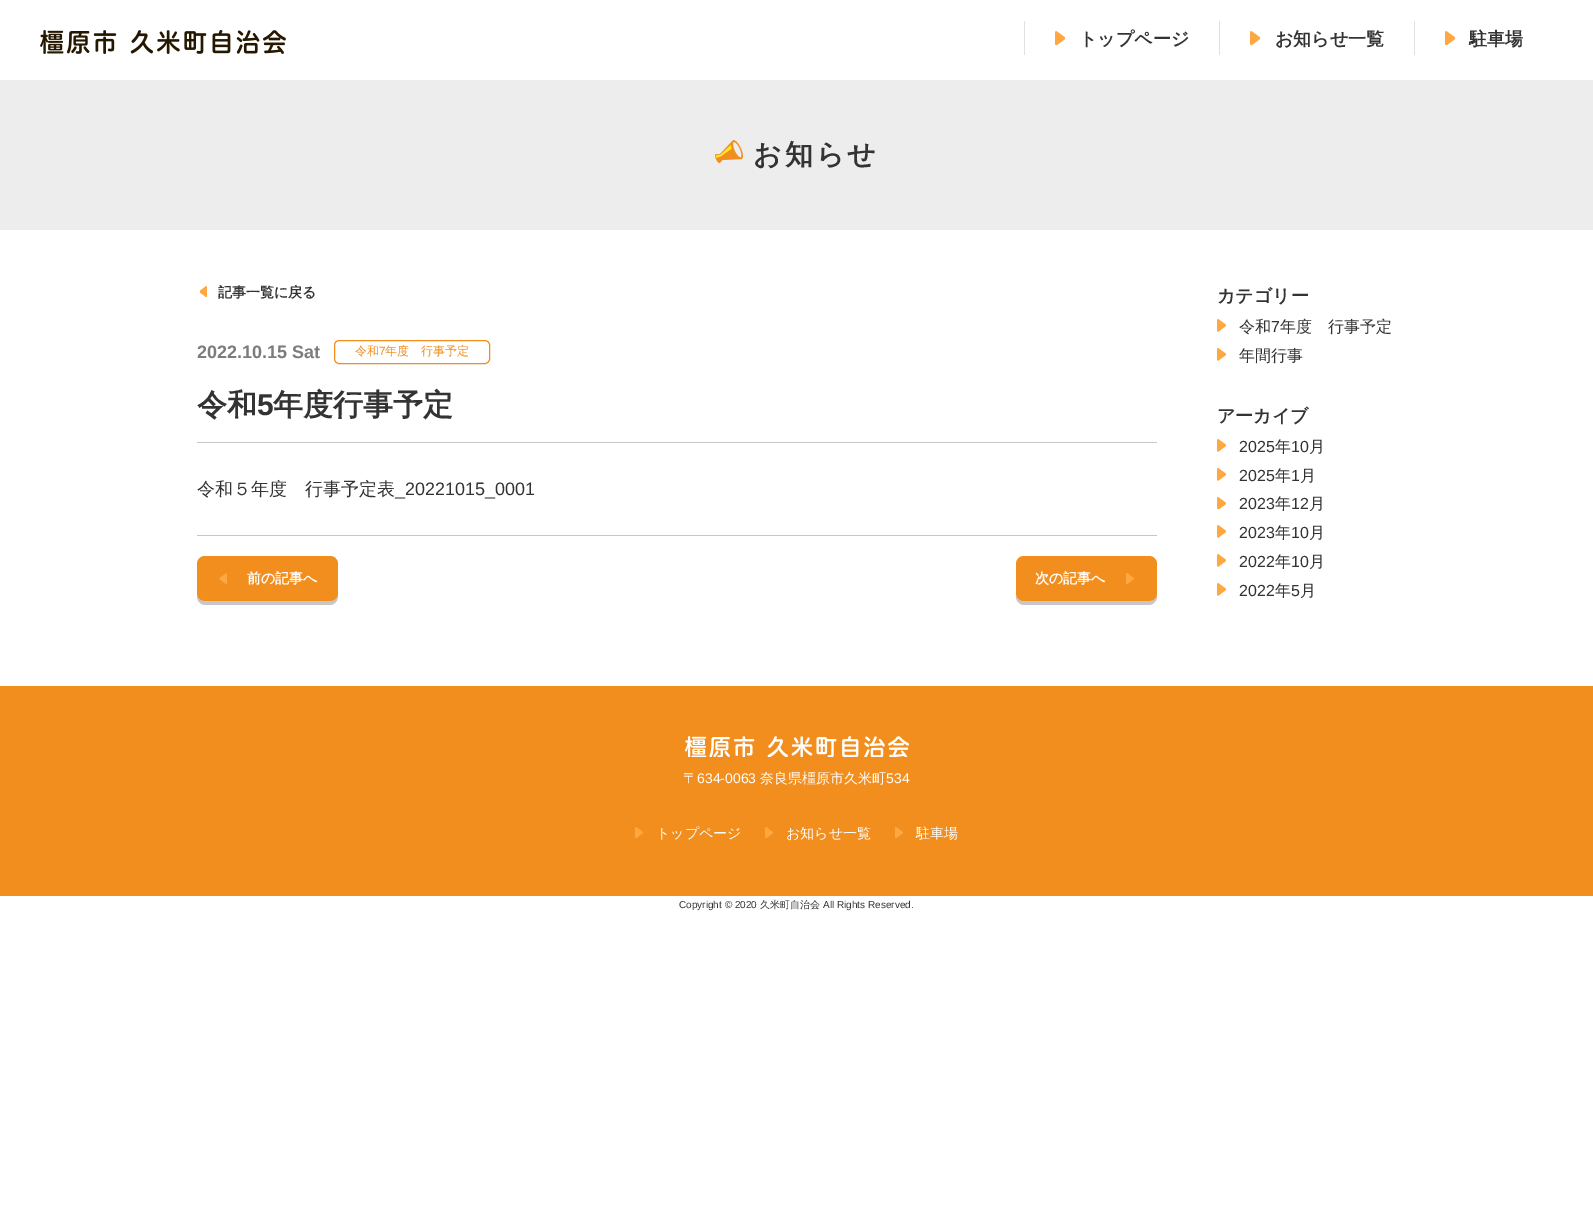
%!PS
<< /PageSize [1593 1223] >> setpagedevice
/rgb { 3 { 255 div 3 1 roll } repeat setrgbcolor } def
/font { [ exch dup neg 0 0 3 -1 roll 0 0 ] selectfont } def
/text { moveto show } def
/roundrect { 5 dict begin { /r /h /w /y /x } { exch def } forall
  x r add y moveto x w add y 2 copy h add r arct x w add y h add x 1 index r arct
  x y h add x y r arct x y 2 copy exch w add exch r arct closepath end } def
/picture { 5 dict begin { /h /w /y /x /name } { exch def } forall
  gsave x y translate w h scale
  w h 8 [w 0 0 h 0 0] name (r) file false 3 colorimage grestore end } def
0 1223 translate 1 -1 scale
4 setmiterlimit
255 255 255 rgb
0 0 1593 1223 rectfill
(img_01.rgb) 40 30 246 24 picture
225 225 225 rgb
1024 21 1 34 rectfill
(img_02.rgb) 1055 31 10 14 picture
1219 21 1 34 rectfill
(img_02.rgb) 1250 31 10 14 picture
1414 21 1 34 rectfill
(img_02.rgb) 1445 31 10 14 picture
237 237 237 rgb
0 80 1593 150 rectfill
(img_03.rgb) 715 140 28 23 picture
(img_04.rgb) 200 286 7 11 picture
242 142 30 rgb
334.5 340.5 155 23 4.5 roundrect stroke
199 199 199 rgb
197 442 960 1 rectfill
197 535 960 1 rectfill
197 593 moveto 0 4 rlineto 0 4 4 8 8 8 rcurveto 125 0 rlineto 4 0 8 -4 8 -8 rcurveto 0 -4 rlineto 0 4 -4 8 -8 8 rcurveto -125 0 rlineto -4 0 -8 -4 -8 -8 rcurveto closepath fill
242 142 30 rgb
197 556 141 45 8 roundrect fill
(img_05.rgb) 219 573 8 11 picture
199 199 199 rgb
1016 593 moveto 0 4 rlineto 0 4 4 8 8 8 rcurveto 125 0 rlineto 4 0 8 -4 8 -8 rcurveto 0 -4 rlineto 0 4 -4 8 -8 8 rcurveto -125 0 rlineto -4 0 -8 -4 -8 -8 rcurveto closepath fill
242 142 30 rgb
1016 556 141 45 8 roundrect fill
(img_06.rgb) 1126 573 8 11 picture
(img_07.rgb) 1217 319 9 13 picture
(img_07.rgb) 1217 348 9 13 picture
(img_07.rgb) 1217 439 9 13 picture
(img_07.rgb) 1217 468 9 13 picture
(img_08.rgb) 1217 497 9 12 picture
(img_07.rgb) 1217 525 9 13 picture
(img_07.rgb) 1217 554 9 13 picture
(img_07.rgb) 1217 583 9 13 picture
0 686 1593 210 rectfill
(img_09.rgb) 685 736 224 21 picture
(img_06.rgb) 635 827 8 11 picture
(img_06.rgb) 765 827 8 11 picture
(img_06.rgb) 895 827 8 11 picture
/WenQuanYiZenHei-Bold 18 font
51 51 51 rgb
(トップページ) 1079 45 text
(お知らせ一覧) 1275 45 text
(駐車場) 1469 45 text
/WenQuanYiZenHei-Bold 28 font
753 164 moveto 3 0 (お知らせ) ashow
/WenQuanYiZenHei-Bold 14 font
(記事一覧に戻る) 218 297 text
/LiberationSans-Bold 18 font
124 124 124 rgb
(2022.10.15 Sat) 197 358 text
/WenQuanYiZenHei-Medium 12 font
242 142 30 rgb
(令和) 355 355 text
/LiberationSans-Regular 12 font
(7) 379 355 text
/WenQuanYiZenHei-Medium 12 font
(年度　行事予定) 385 355 text
/WenQuanYiZenHei-Bold 30 font
51 51 51 rgb
(令和) 197 415 text
/LiberationSans-Bold 30 font
(5) 257 415 text
/WenQuanYiZenHei-Bold 30 font
(年度行事予定) 273 415 text
/WenQuanYiZenHei-Medium 18 font
(令和５年度　行事予定表) 197 495 text
/LiberationSans-Regular 18 font
(_20221015_0001) 395 495 text
/WenQuanYiZenHei-Bold 14 font
255 255 255 rgb
(前の記事へ) 247 583 text
(次の記事へ) 1035 583 text
/WenQuanYiZenHei-Bold 18 font
51 51 51 rgb
(カテゴリー) 1217 302 text
/WenQuanYiZenHei-Medium 16 font
(令和) 1239 332 text
/LiberationSans-Regular 16 font
(7) 1271 332 text
/WenQuanYiZenHei-Medium 16 font
(年度　行事予定) 1280 332 text
(年間行事) 1239 361 text
/WenQuanYiZenHei-Bold 18 font
(アーカイブ) 1217 422 text
/LiberationSans-Regular 16 font
(2025) 1239 452 text
/WenQuanYiZenHei-Medium 16 font
(年) 1275 452 text
/LiberationSans-Regular 16 font
(10) 1291 452 text
/WenQuanYiZenHei-Medium 16 font
(月) 1309 452 text
/LiberationSans-Regular 16 font
(2025) 1239 481 text
/WenQuanYiZenHei-Medium 16 font
(年) 1275 481 text
/LiberationSans-Regular 16 font
(1) 1291 481 text
/WenQuanYiZenHei-Medium 16 font
(月) 1300 481 text
/LiberationSans-Regular 16 font
(2023) 1239 509 text
/WenQuanYiZenHei-Medium 16 font
(年) 1275 509 text
/LiberationSans-Regular 16 font
(12) 1291 509 text
/WenQuanYiZenHei-Medium 16 font
(月) 1309 509 text
/LiberationSans-Regular 16 font
(2023) 1239 538 text
/WenQuanYiZenHei-Medium 16 font
(年) 1275 538 text
/LiberationSans-Regular 16 font
(10) 1291 538 text
/WenQuanYiZenHei-Medium 16 font
(月) 1309 538 text
/LiberationSans-Regular 16 font
(2022) 1239 567 text
/WenQuanYiZenHei-Medium 16 font
(年) 1275 567 text
/LiberationSans-Regular 16 font
(10) 1291 567 text
/WenQuanYiZenHei-Medium 16 font
(月) 1309 567 text
/LiberationSans-Regular 16 font
(2022) 1239 596 text
/WenQuanYiZenHei-Medium 16 font
(年) 1275 596 text
/LiberationSans-Regular 16 font
(5) 1291 596 text
/WenQuanYiZenHei-Medium 16 font
(月) 1300 596 text
/WenQuanYiZenHei-Medium 14 font
255 255 255 rgb
(〒) 683 783 text
/LiberationSans-Regular 14 font
(634-0063) 697 783 text
/WenQuanYiZenHei-Medium 14 font
(奈良県橿原市久米町) 760 783 text
/LiberationSans-Regular 14 font
(534) 886 783 text
/WenQuanYiZenHei-Medium 14 font
(トップページ) 656 838 text
(お知らせ一覧) 786 838 text
(駐車場) 916 838 text
/LiberationSans-Regular 10 font
51 51 51 rgb
(Copyright © 2020) 679 908 text
/WenQuanYiZenHei-Medium 10 font
(久米町自治会) 760 908 text
/LiberationSans-Regular 10 font
(All Rights Reserved.) 823 908 text
showpage
